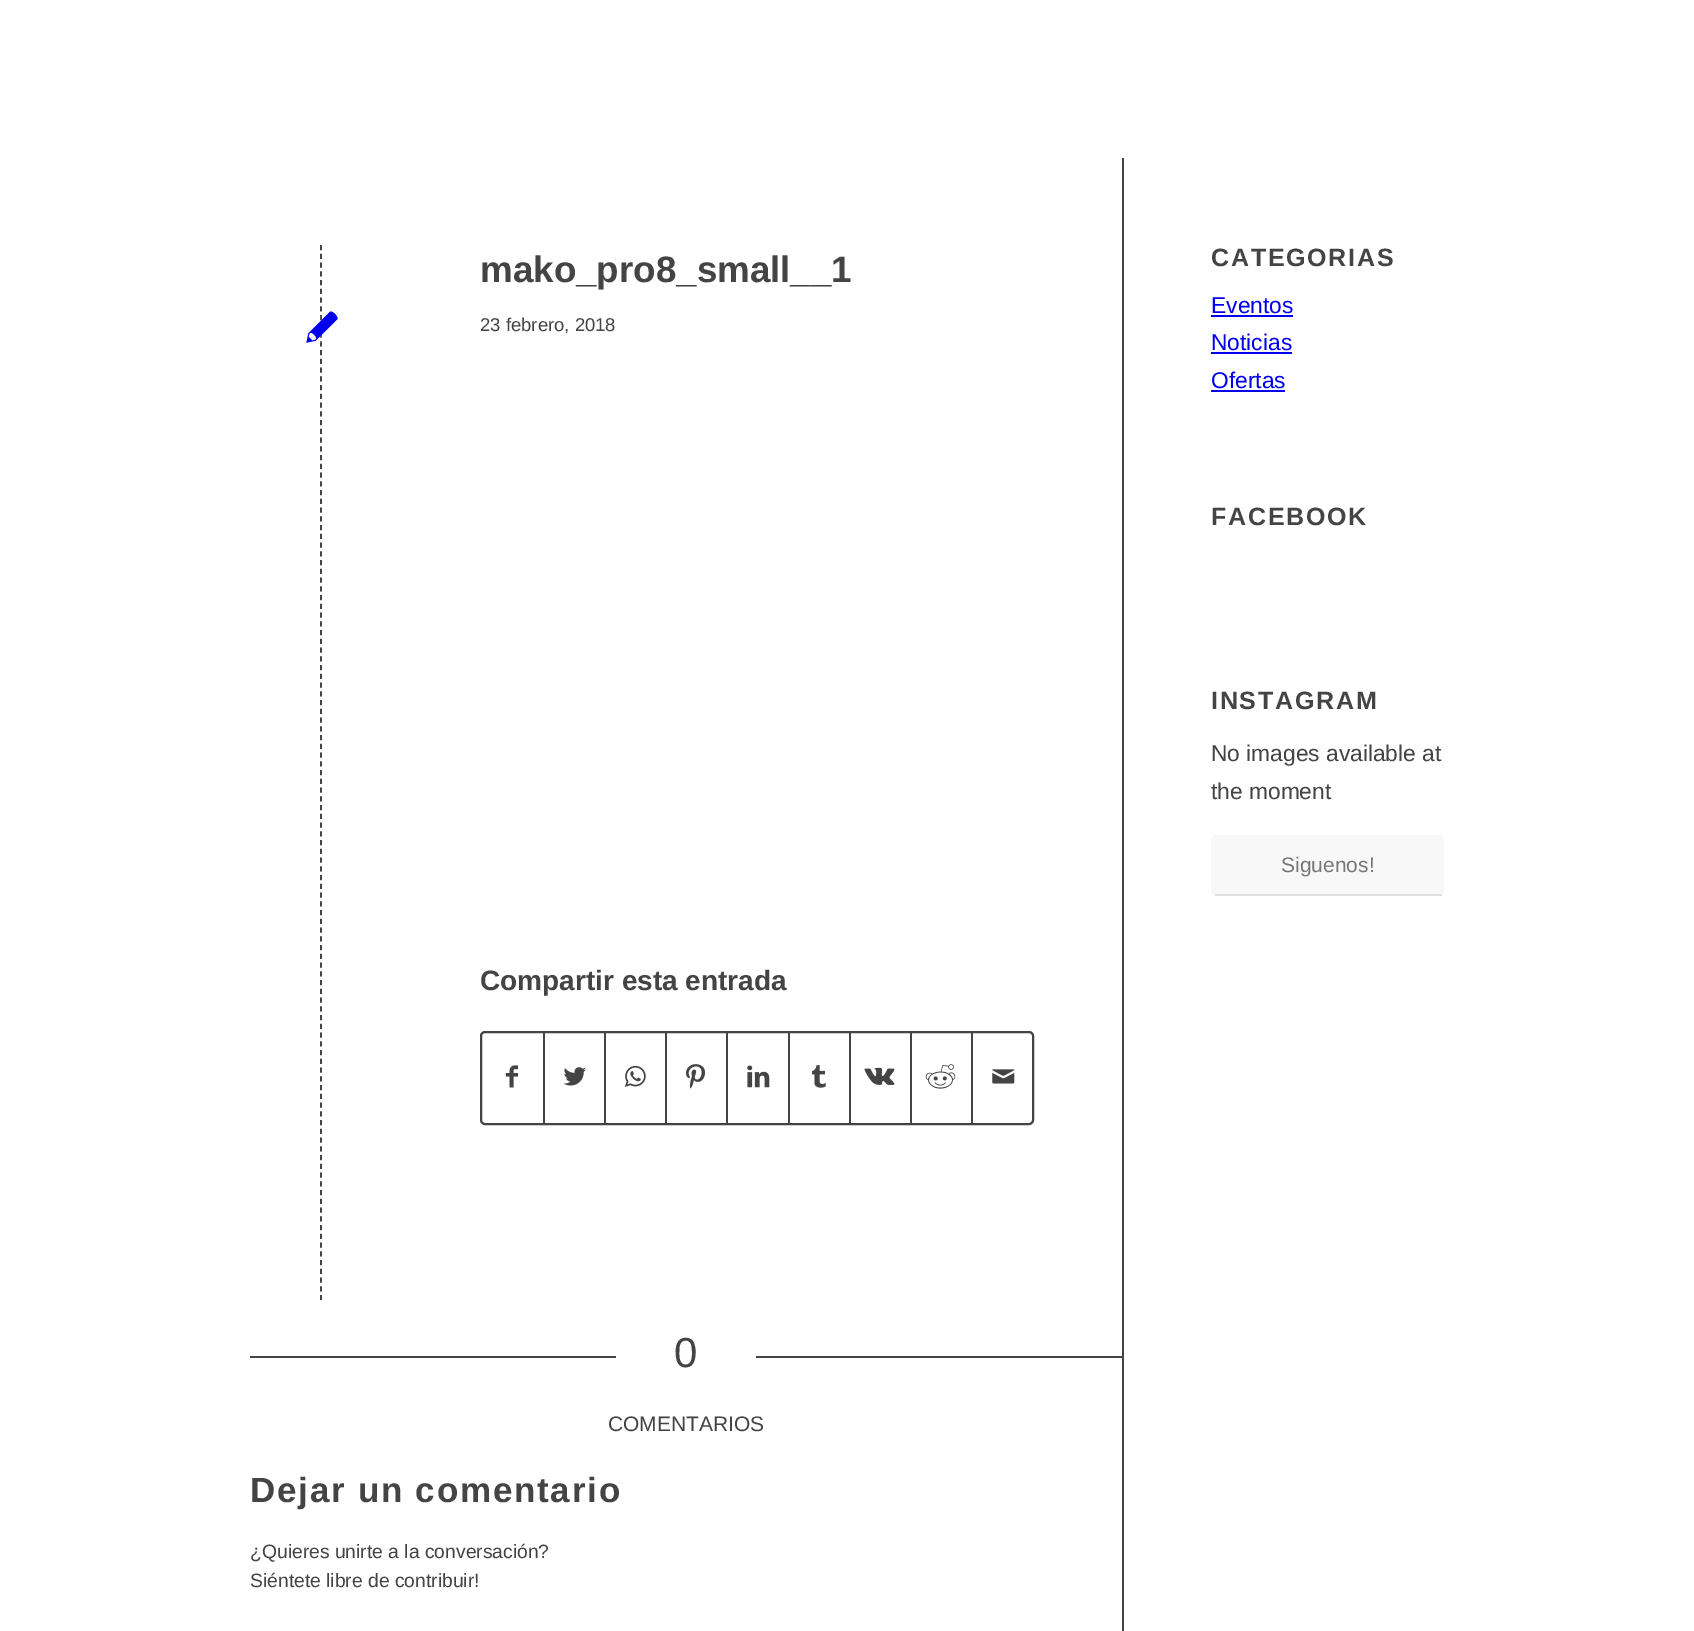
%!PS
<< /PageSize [1694 1631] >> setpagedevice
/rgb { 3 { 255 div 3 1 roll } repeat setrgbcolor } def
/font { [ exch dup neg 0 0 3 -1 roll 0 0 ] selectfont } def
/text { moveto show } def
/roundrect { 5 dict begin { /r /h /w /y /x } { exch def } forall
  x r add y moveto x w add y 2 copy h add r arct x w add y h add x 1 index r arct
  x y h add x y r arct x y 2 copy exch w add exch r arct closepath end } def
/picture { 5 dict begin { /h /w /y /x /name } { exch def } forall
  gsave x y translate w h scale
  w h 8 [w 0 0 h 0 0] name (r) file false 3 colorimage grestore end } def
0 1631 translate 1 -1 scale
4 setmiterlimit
255 255 255 rgb
0 0 1694 1631 rectfill
68 68 68 rgb
1122 158 2 1473 rectfill
1.8 setlinewidth
[5.25 3.5] 0 setdash
321 245 moveto 0 1055 rlineto stroke
2 setlinewidth
[] 0 setdash
481 1032 552 92 4 roundrect stroke
(img_01.rgb) 505 1065 13 23 picture
543 1033 2 91 rectfill
(img_02.rgb) 563 1067 23 19 picture
604 1033 2 91 rectfill
(img_03.rgb) 624 1065 22 22 picture
665 1033 2 91 rectfill
(img_04.rgb) 686 1064 19 25 picture
726 1033 2 91 rectfill
(img_05.rgb) 747 1065 23 23 picture
788 1033 2 91 rectfill
(img_06.rgb) 812 1065 14 23 picture
849 1033 2 91 rectfill
(img_07.rgb) 864 1067 31 18 picture
910 1033 2 91 rectfill
(img_08.rgb) 925 1064 31 25 picture
971 1033 2 91 rectfill
(img_09.rgb) 992 1069 23 15 picture
(img_10.rgb) 306 311 32 32 picture
250 1356 366 2 rectfill
756 1356 366 2 rectfill
0 0 238 rgb
1211 315 82 2 rectfill
1211 352 81 2 rectfill
1211 390 74 2 rectfill
248 248 248 rgb
1211 835 233 61 5 roundrect fill
225 225 225 rgb
1215 894 227 2 rectfill
/LiberationSans-Bold 36.75 font
68 68 68 rgb
(mako_pro8_small__1) 480 282 text
/LiberationSans-Regular 18.5 font
(23 febrero, 2018) 480 331 text
/LiberationSans-Bold 28 font
(Compartir esta entrada) 480 990 text
/LiberationSans-Regular 42 font
(0) 674 1367 text
/LiberationSans-Regular 21 font
(COMENTARIOS) 608 1431 text
/LiberationSans-Bold 35 font
250 1502 moveto 1.75 0 (Dejar un comentario) ashow
/LiberationSans-Regular 19.3 font
(¿Quieres unirte a la conversación?) 250 1558 text
(Siéntete libre de contribuir!) 250 1587 text
/LiberationSans-Bold 25 font
1211 266 moveto 1.75 0 (CATEGORIAS) ashow
/LiberationSans-Regular 22.75 font
0 0 238 rgb
(Eventos) 1211 313 text
(Noticias) 1211 350 text
(Ofertas) 1211 388 text
/LiberationSans-Bold 25 font
68 68 68 rgb
1211 525 moveto 1.75 0 (FACEBOOK) ashow
1211 709 moveto 1.75 0 (INSTAGRAM) ashow
/LiberationSans-Regular 22.75 font
(No images available at) 1211 761 text
(the moment) 1211 799 text
/LiberationSans-Regular 21 font
119 119 119 rgb
(Siguenos!) 1281 872 text
showpage
